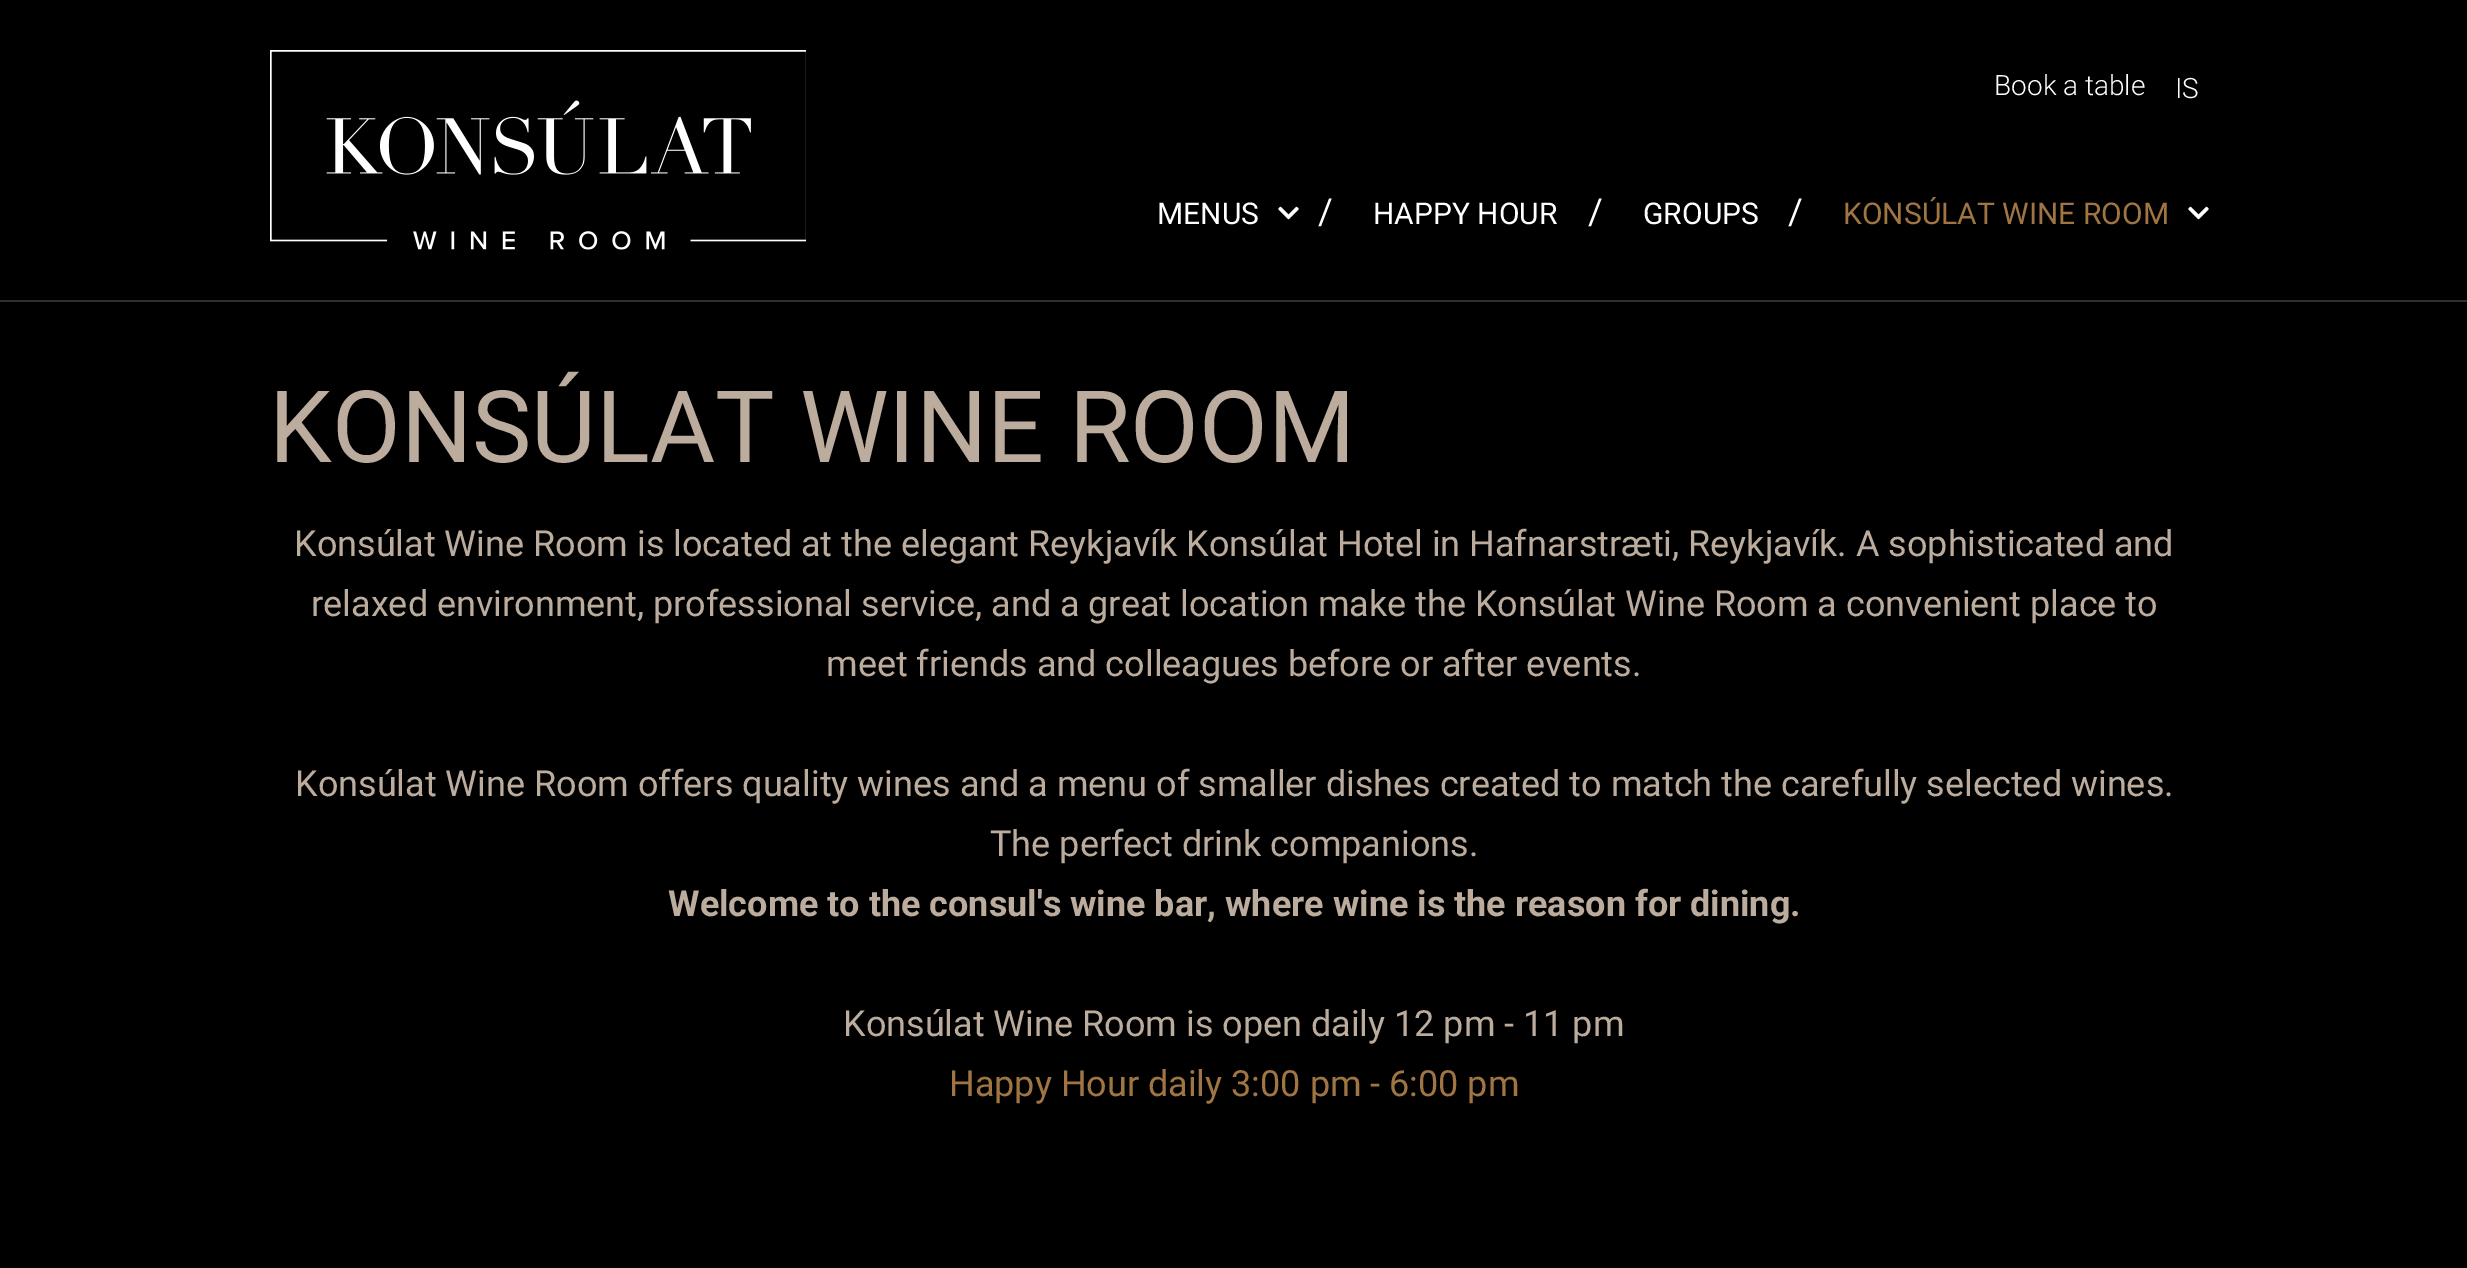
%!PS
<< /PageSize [2467 1268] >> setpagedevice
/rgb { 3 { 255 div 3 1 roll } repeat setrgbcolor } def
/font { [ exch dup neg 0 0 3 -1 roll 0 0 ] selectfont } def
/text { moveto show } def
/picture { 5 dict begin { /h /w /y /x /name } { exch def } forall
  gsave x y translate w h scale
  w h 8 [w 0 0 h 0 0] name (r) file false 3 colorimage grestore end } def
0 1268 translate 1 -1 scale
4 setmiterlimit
0 0 0 rgb
0 0 2467 1268 rectfill
47 47 47 rgb
0 300 2467 2 rectfill
(img_01.rgb) 270 50 536 200 picture
(img_02.rgb) 1278 206 21 14 picture
(img_02.rgb) 2188 206 21 14 picture
/Roboto-Light 28 font
255 255 255 rgb
(Book a table) 1994 95 text
(IS) 2175 98 text
/Roboto-Regular 30 font
(MENUS) 1157 224 text
/Roboto-Regular 36 font
(/) 1318 224 text
/Roboto-Regular 30 font
(HAPPY HOUR) 1373 224 text
/Roboto-Regular 36 font
(/) 1588 224 text
/Roboto-Regular 30 font
(GROUPS) 1643 224 text
/Roboto-Regular 36 font
(/) 1788 224 text
/Roboto-Regular 30 font
160 117 68 rgb
(KONSÚLAT WINE ROOM) 1843 224 text
/Roboto-Regular 100 font
188 172 157 rgb
(KONSÚLAT WINE ROOM) 269 462 text
/Roboto-Regular 36 font
(Konsúlat Wine Room is located at the elegant Reykjavík Konsúlat Hotel in Hafnarstræti, Reykjavík. A sophisticated and) 294 556 text
(relaxed environment, professional service, and a great location make the Konsúlat Wine Room a convenient place to) 311 616 text
(meet friends and colleagues before or after events.) 826 676 text
(Konsúlat Wine Room offers quality wines and a menu of smaller dishes created to match the carefully selected wines.) 295 796 text
(The perfect drink companions.) 990 856 text
/Roboto-Bold 36 font
(Welcome to the consul's wine bar, where wine is the reason for dining.) 668 916 text
/Roboto-Regular 36 font
(Konsúlat Wine Room is open daily 12 pm - 11 pm) 843 1036 text
160 117 68 rgb
(Happy Hour daily 3:00 pm - 6:00 pm) 949 1096 text
showpage
